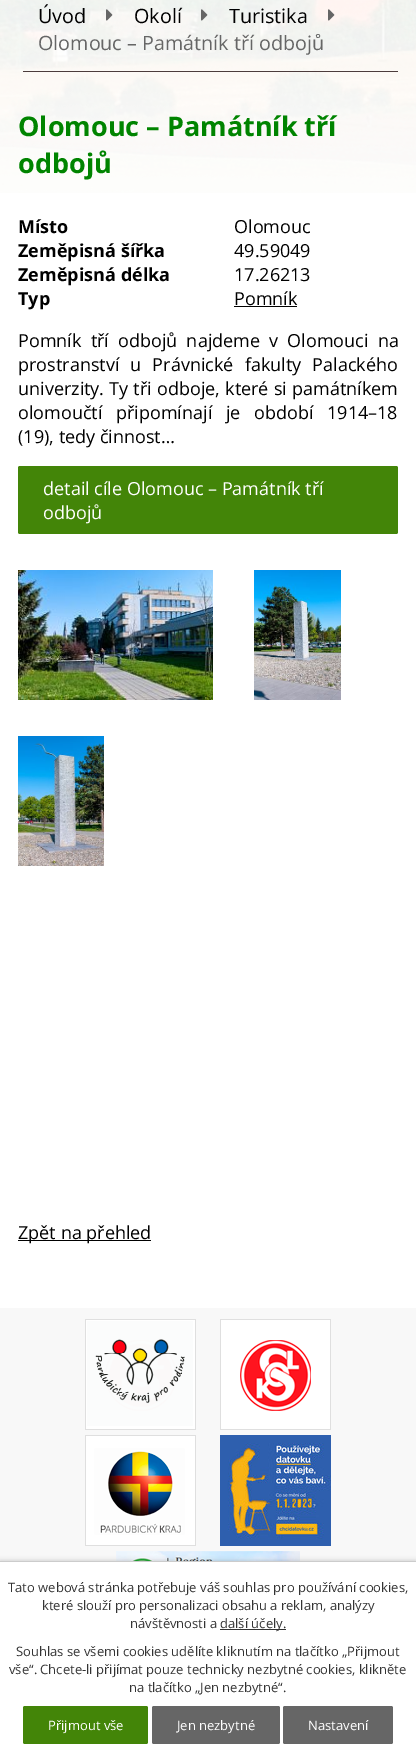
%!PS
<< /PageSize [416 1750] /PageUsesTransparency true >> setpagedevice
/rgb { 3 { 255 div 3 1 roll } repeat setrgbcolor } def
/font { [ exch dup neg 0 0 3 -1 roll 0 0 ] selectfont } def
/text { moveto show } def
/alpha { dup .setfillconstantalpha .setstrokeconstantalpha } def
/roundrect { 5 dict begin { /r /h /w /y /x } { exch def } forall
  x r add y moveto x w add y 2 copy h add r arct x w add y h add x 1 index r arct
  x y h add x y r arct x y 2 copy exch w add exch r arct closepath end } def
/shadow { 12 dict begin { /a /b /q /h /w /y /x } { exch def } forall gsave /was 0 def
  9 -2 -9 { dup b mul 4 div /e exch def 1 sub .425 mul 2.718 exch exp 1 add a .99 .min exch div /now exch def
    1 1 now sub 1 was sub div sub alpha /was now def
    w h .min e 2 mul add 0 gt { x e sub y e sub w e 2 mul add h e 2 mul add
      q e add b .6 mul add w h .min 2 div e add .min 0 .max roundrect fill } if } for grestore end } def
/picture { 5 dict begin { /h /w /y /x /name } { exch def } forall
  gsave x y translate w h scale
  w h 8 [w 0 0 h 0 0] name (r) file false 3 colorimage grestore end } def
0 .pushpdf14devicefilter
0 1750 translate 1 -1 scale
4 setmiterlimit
255 255 255 rgb
0 0 416 1750 rectfill
(img_01.rgb) 0 0 416 193 picture
76 60 60 rgb
23 71 375 1 rectfill
(img_02.rgb) 106 9 7 12 picture
(img_03.rgb) 201 9 7 12 picture
(img_04.rgb) 328 9 7 12 picture
0 0 0 rgb
234 306 63 1 rectfill
67 133 8 rgb
18 466 380 68 2 roundrect fill
(img_05.rgb) 18 570 195 130 picture
(img_06.rgb) 254 570 87 130 picture
(img_07.rgb) 18 736 86 130 picture
0 0 0 rgb
18 1240 133 1 rectfill
248 248 248 rgb
0 1308 416 253 rectfill
(img_08.rgb) 85 1319 111 111 picture
(img_09.rgb) 220 1319 111 111 picture
(img_10.rgb) 85 1435 111 111 picture
(img_11.rgb) 220 1435 111 111 picture
(img_12.rgb) 116 1551 184 10 picture
0 0 0 rgb
0 1561 416 189 0 2.5 0.2 shadow
255 255 255 rgb
0 1562 416 188 rectfill
204 204 204 rgb
0 1561 416 1 rectfill
51 51 51 rgb
220 1629 66 1 rectfill
67 133 8 rgb
23 1706 125 38 2 roundrect fill
102 102 102 rgb
152 1706 128 38 2 roundrect fill
283 1706 110 38 2 roundrect fill
/OpenSans-Regular 19.75 font
0 0 0 rgb
(Úvod) 38 23 text
(Okolí) 134 23 text
(Turistika) 229 23 text
102 102 102 rgb
(Olomouc – Památník tří odbojů) 38 50 text
/OpenSans-Bold 27 font
0 132 0 rgb
(Olomouc – Památník tří) 18 136 text
(odbojů) 18 173 text
/OpenSans-Bold 18 font
0 0 0 rgb
(Místo) 18 233 text
/OpenSans-Regular 18 font
(Olomouc) 234 233 text
/OpenSans-Bold 18 font
(Zeměpisná šířka) 18 257 text
/OpenSans-Regular 18 font
(49.59049) 234 257 text
/OpenSans-Bold 18 font
(Zeměpisná délka) 18 281 text
/OpenSans-Regular 18 font
(17.26213) 234 281 text
/OpenSans-Bold 18 font
(Typ) 18 305 text
/OpenSans-Regular 18 font
(Pomník) 234 305 text
18 347 moveto 4.5 0 32 (Pomník tří odbojů najdeme v Olomouci na) widthshow
18 371 moveto 6.5 0 32 (prostranství u Právnické fakulty Palackého) widthshow
18 395 moveto 0.5 0 32 (univerzity. Ty tři odboje, které si památníkem) widthshow
18 419 moveto 9 0 32 (olomoučtí připomínají je období 1914–18) widthshow
(\(19\), tedy činnost…) 18 443 text
255 255 255 rgb
(detail cíle Olomouc – Památník tří) 43 495 text
(odbojů) 43 519 text
0 0 0 rgb
(Zpět na přehled) 18 1239 text
/OpenSans-Regular 13 font
51 51 51 rgb
(Tato webová stránka potřebuje váš souhlas pro používání cookies,) 8 1592 text
(které slouží pro personalizaci obsahu a reklam, analýzy) 42 1610 text
(návštěvnosti a) 130 1628 text
(další účely.) 220 1628 text
(Souhlas se všemi cookies udělíte kliknutím na tlačítko „Přijmout) 16 1656 text
(vše“. Chcete-li přijímat pouze technicky nezbytné cookies, klikněte) 9 1674 text
(na tlačítko „Jen nezbytné“.) 129 1692 text
255 255 255 rgb
(Přijmout vše) 48 1730 text
(Jen nezbytné) 177 1730 text
(Nastavení) 308 1730 text
.poppdf14devicefilter showpage
